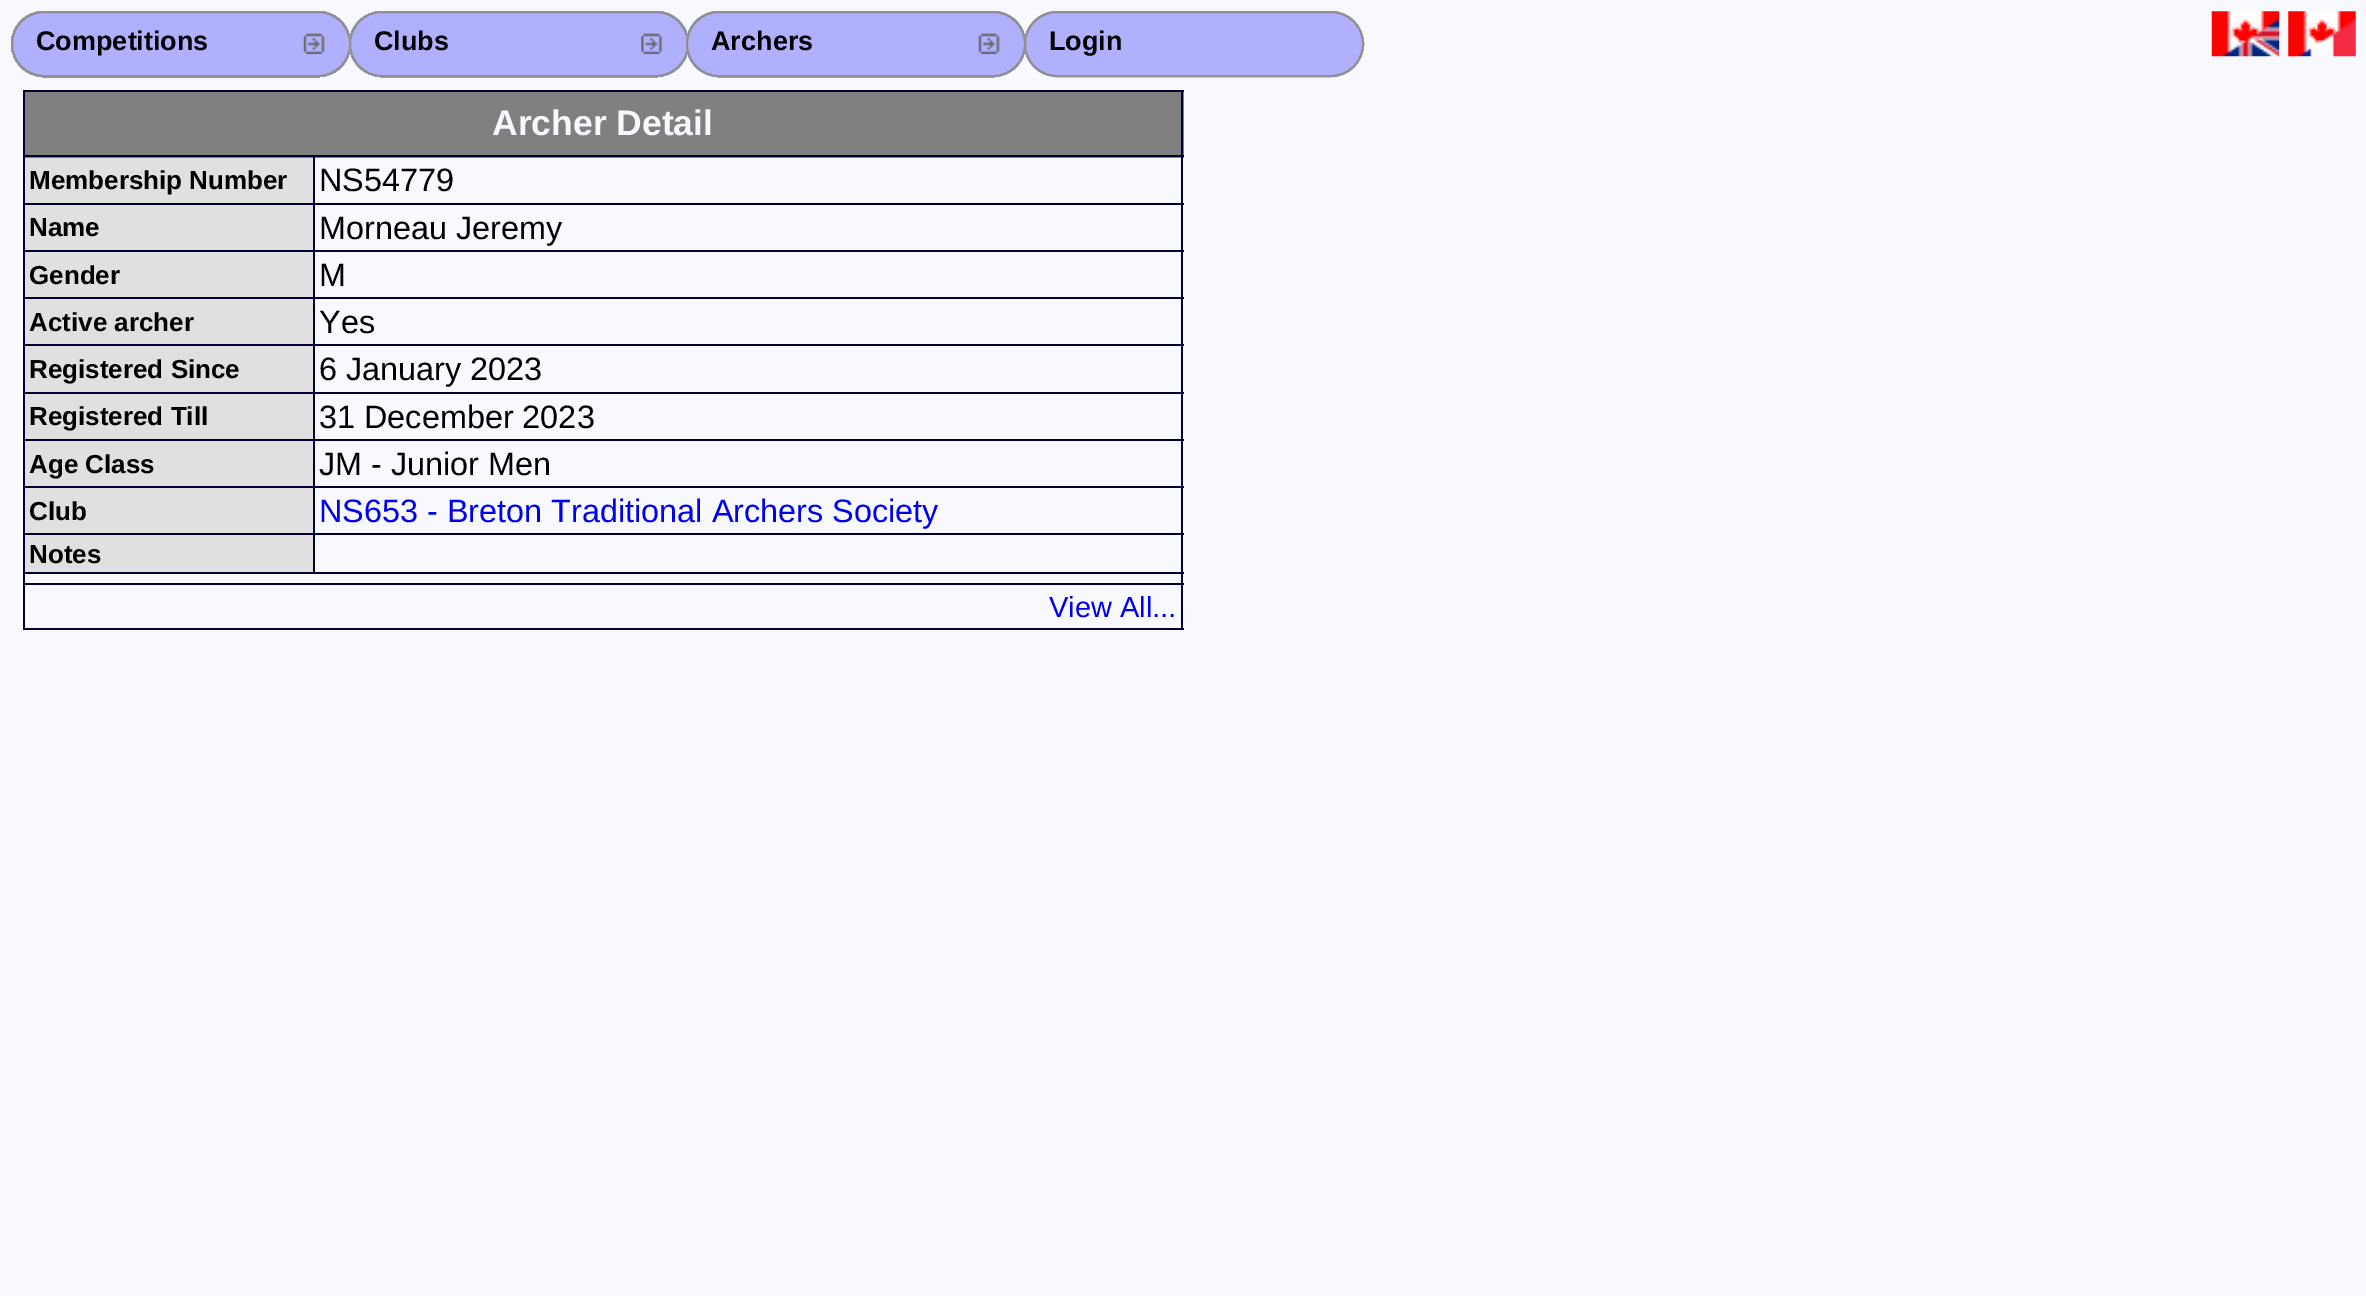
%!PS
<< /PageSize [2366 1296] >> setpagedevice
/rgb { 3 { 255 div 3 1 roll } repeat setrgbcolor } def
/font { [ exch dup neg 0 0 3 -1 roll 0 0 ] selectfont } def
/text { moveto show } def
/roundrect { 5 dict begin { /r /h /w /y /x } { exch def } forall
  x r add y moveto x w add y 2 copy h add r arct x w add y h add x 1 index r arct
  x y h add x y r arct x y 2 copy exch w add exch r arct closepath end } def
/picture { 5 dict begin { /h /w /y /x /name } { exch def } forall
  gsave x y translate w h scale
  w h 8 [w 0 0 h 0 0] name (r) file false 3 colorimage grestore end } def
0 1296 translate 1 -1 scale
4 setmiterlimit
248 248 255 rgb
0 0 2366 1296 rectfill
144 144 144 rgb
2 setlinewidth
12 12 338 64 32 roundrect stroke
350 12 338 64 32 roundrect stroke
12 12 338 64 32 roundrect stroke
12 12 338 64 32 roundrect stroke
12 12 338 64 32 roundrect stroke
12 12 338 64 32 roundrect stroke
12 12 338 64 32 roundrect stroke
12 12 338 64 32 roundrect stroke
12 12 338 64 32 roundrect stroke
12 12 338 64 32 roundrect stroke
12 12 338 64 32 roundrect stroke
12 12 338 64 32 roundrect stroke
12 12 338 64 32 roundrect stroke
12 12 338 64 32 roundrect stroke
12 12 338 64 32 roundrect stroke
12 12 338 64 32 roundrect stroke
176 176 255 rgb
11 11 340 66 33 roundrect fill
(img_01.rgb) 303 33 22 21 picture
144 144 144 rgb
12 12 338 64 32 roundrect stroke
687 12 338 64 32 roundrect stroke
350 12 338 64 32 roundrect stroke
350 12 338 64 32 roundrect stroke
350 12 338 64 32 roundrect stroke
350 12 338 64 32 roundrect stroke
350 12 338 64 32 roundrect stroke
176 176 255 rgb
349 11 340 66 33 roundrect fill
(img_02.rgb) 641 33 22 21 picture
144 144 144 rgb
350 12 338 64 32 roundrect stroke
1025 12 338 64 32 roundrect stroke
687 12 338 64 32 roundrect stroke
687 12 338 64 32 roundrect stroke
687 12 338 64 32 roundrect stroke
687 12 338 64 32 roundrect stroke
687 12 338 64 32 roundrect stroke
176 176 255 rgb
686 11 340 66 33 roundrect fill
(img_03.rgb) 978 33 22 21 picture
144 144 144 rgb
687 12 338 64 32 roundrect stroke
176 176 255 rgb
1025 12 338 64 32 roundrect gsave fill grestore
144 144 144 rgb
stroke
(img_04.rgb) 2211 11 69 46 picture
(img_05.rgb) 2288 11 68 46 picture
0 0 51 rgb
23 90 1161 2 rectfill
128 128 128 rgb
25 92 1159 66 rectfill
0 0 51 rgb
1181 90 2 540 rectfill
23 628 1161 2 rectfill
23 90 2 540 rectfill
224 224 224 rgb
25 158 288 45 rectfill
0 0 51 rgb
313 155 871 2 rectfill
313 203 871 2 rectfill
313 250 871 2 rectfill
313 297 871 2 rectfill
224 224 224 rgb
25 299 288 93 rectfill
0 0 51 rgb
313 344 871 2 rectfill
313 392 871 2 rectfill
313 439 871 2 rectfill
313 486 871 2 rectfill
224 224 224 rgb
25 488 288 84 rectfill
0 0 51 rgb
313 533 871 2 rectfill
23 572 1161 2 rectfill
313 533 2 41 rectfill
23 533 292 2 rectfill
313 486 2 50 rectfill
23 486 292 2 rectfill
313 439 2 49 rectfill
23 439 292 2 rectfill
313 392 2 49 rectfill
23 392 292 2 rectfill
313 344 2 50 rectfill
23 344 292 2 rectfill
313 297 2 50 rectfill
23 297 292 2 rectfill
313 250 2 49 rectfill
23 250 292 2 rectfill
313 203 2 49 rectfill
23 203 292 2 rectfill
313 155 2 50 rectfill
23 155 292 2 rectfill
224 224 224 rgb
25 205 288 45 rectfill
25 252 288 45 rectfill
25 394 288 45 rectfill
25 441 288 45 rectfill
0 0 51 rgb
23 583 1161 2 rectfill
/LiberationSans-Bold 27 font
0 0 0 rgb
(Competitions) 36 50 text
(Clubs) 374 50 text
(Archers) 711 50 text
(Login) 1049 50 text
/LiberationSans-Bold 35.5 font
248 248 255 rgb
(Archer Detail) 492 135 text
/LiberationSans-Bold 26 font
0 0 0 rgb
(Membership Number) 29 189 text
/LiberationSans-Regular 32.4 font
(NS54779) 319 191 text
/LiberationSans-Bold 26 font
(Name) 29 236 text
/LiberationSans-Regular 32.4 font
(Morneau Jeremy) 319 239 text
/LiberationSans-Bold 26 font
(Gender) 29 284 text
/LiberationSans-Regular 32.4 font
(M) 319 286 text
/LiberationSans-Bold 26 font
(Active archer) 29 331 text
/LiberationSans-Regular 32.4 font
(Yes) 319 333 text
/LiberationSans-Bold 26 font
(Registered Since) 29 378 text
/LiberationSans-Regular 32.4 font
(6 January 2023) 319 380 text
/LiberationSans-Bold 26 font
(Registered Till) 29 425 text
/LiberationSans-Regular 32.4 font
(31 December 2023) 319 428 text
/LiberationSans-Bold 26 font
(Age Class) 29 473 text
/LiberationSans-Regular 32.4 font
(JM - Junior Men) 319 475 text
/LiberationSans-Bold 26 font
(Club) 29 520 text
/LiberationSans-Regular 32.4 font
0 0 238 rgb
(NS653 - Breton Traditional Archers Society) 319 522 text
/LiberationSans-Bold 26 font
0 0 0 rgb
(Notes) 29 563 text
/LiberationSans-Regular 29 font
0 0 238 rgb
(View All...) 1049 617 text
showpage
